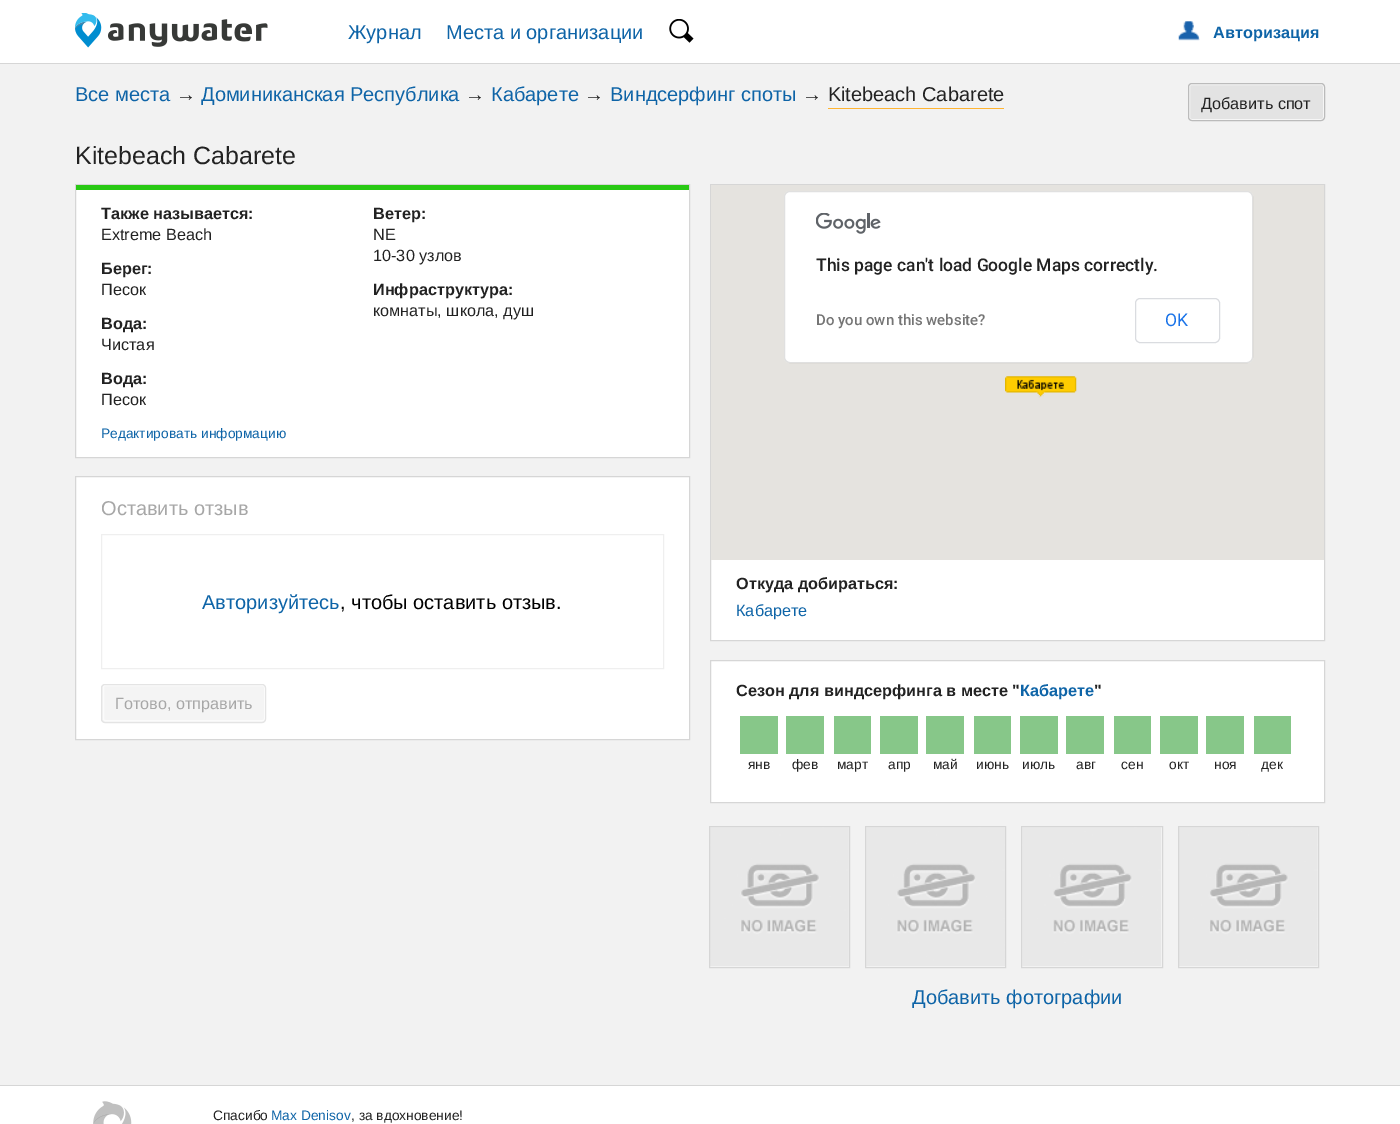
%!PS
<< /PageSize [1400 1124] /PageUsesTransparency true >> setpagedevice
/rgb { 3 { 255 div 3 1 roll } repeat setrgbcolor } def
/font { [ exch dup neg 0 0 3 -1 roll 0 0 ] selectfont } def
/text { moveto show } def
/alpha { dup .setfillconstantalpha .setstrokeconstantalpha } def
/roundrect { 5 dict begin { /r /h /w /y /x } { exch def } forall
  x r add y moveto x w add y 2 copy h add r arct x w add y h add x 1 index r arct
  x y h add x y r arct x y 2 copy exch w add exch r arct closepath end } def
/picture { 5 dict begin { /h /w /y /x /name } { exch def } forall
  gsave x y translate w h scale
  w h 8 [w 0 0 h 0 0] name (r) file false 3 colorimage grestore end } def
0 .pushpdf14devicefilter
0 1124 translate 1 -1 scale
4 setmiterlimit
242 242 242 rgb
0 0 1400 1124 rectfill
255 255 255 rgb
0 0 1400 63 rectfill
214 214 214 rgb
0 63 1400 1 rectfill
(img_01.rgb) 75 13 193 35 picture
(img_02.rgb) 669 19 25 24 picture
(img_03.rgb) 1178 21 22 20 picture
255 180 50 rgb
828 108 176 1 rectfill
227 227 227 rgb
1188 83 137 38 4 roundrect fill
246 246 246 rgb
1189.5 84.5 134 35 2 roundrect stroke
187 187 187 rgb
1188.5 83.5 136 37 3.5 roundrect stroke
255 255 255 rgb
76 190 613 267 rectfill
214 214 214 rgb
75.5 184.5 614 273 rectstroke
41 201 20 rgb
76 185 613 5 rectfill
255 255 255 rgb
75.5 476.5 moveto 614 0 rlineto 0 263 rlineto -614 0 rlineto closepath gsave fill grestore
214 214 214 rgb
stroke
239 239 239 rgb
101.5 534.5 562 134 rectstroke
244 244 244 rgb
101 684 165 39 4 roundrect fill
251 251 251 rgb
103.5 685.5 161 35 2 roundrect stroke
228 228 228 rgb
101.5 684.5 164 38 3.5 roundrect stroke
255 255 255 rgb
711 560 613 80 rectfill
214 214 214 rgb
710.5 184.5 614 456 rectstroke
229 227 223 rgb
711 185 613 375 rectfill
(img_04.rgb) 1005 376 72 22 picture
255 255 255 rgb
784 191 469 172 6 roundrect fill
0.12 alpha
0 0 0 rgb
784.5 191.5 468 171 5.5 roundrect stroke
1 alpha
(img_05.rgb) 816 213 65 21 picture
218 220 224 rgb
1135.5 298.5 84 44 4.5 roundrect stroke
255 255 255 rgb
710.5 660.5 moveto 614 0 rlineto 0 142 rlineto -614 0 rlineto closepath gsave fill grestore
214 214 214 rgb
stroke
135 199 137 rgb
740 716 38 38 rectfill
786 716 38 38 rectfill
834 716 37 38 rectfill
880 716 38 38 rectfill
926 716 38 38 rectfill
974 716 37 38 rectfill
1020 716 38 38 rectfill
1066 716 38 38 rectfill
1114 716 37 38 rectfill
1160 716 38 38 rectfill
1206 716 38 38 rectfill
1254 716 37 38 rectfill
(img_06.rgb) 710 827 139 139 picture
214 214 214 rgb
709.5 826.5 140 141 rectstroke
(img_07.rgb) 866 827 139 139 picture
865.5 826.5 140 141 rectstroke
(img_08.rgb) 1022 827 139 139 picture
1021.5 826.5 141 141 rectstroke
(img_09.rgb) 1179 827 139 139 picture
1178.5 826.5 140 141 rectstroke
255 255 255 rgb
0 1086 1400 38 rectfill
214 214 214 rgb
0 1085 1400 1 rectfill
(img_10.rgb) 93 1101 39 23 picture
/LiberationSans-Regular 20 font
14 100 167 rgb
(Журнал) 348 39 text
(Места и организации) 446 39 text
/LiberationSans-Bold 16.25 font
(Авторизация) 1213 38 text
/LiberationSans-Regular 20 font
(Все места) 75 101 text
34 34 34 rgb
(→) 176 101 text
14 100 167 rgb
(Доминиканская Республика) 201 101 text
34 34 34 rgb
(→) 465 101 text
14 100 167 rgb
(Кабарете) 491 101 text
34 34 34 rgb
(→) 584 101 text
14 100 167 rgb
(Виндсерфинг споты) 610 101 text
34 34 34 rgb
(→ Kitebeach Cabarete) 802 101 text
/LiberationSans-Regular 16.25 font
(Добавить спот) 1201 109 text
/LiberationSans-Regular 25 font
(Kitebeach Cabarete) 75 164 text
/LiberationSans-Bold 16.25 font
(Также называется:) 101 219 text
/LiberationSans-Regular 16.25 font
(Extreme Beach) 101 240 text
/LiberationSans-Bold 16.25 font
(Берег:) 101 274 text
/LiberationSans-Regular 16.25 font
(Песок) 101 295 text
/LiberationSans-Bold 16.25 font
(Вода:) 101 329 text
/LiberationSans-Regular 16.25 font
(Чистая) 101 350 text
/LiberationSans-Bold 16.25 font
(Вода:) 101 384 text
/LiberationSans-Regular 16.25 font
(Песок) 101 405 text
/LiberationSans-Bold 16.25 font
(Ветер:) 373 219 text
/LiberationSans-Regular 16.25 font
(NE) 373 240 text
(10-30 узлов) 373 261 text
/LiberationSans-Bold 16.25 font
(Инфраструктура:) 373 295 text
/LiberationSans-Regular 16.25 font
(комнаты, школа, душ) 373 316 text
/LiberationSans-Regular 13.75 font
14 100 167 rgb
(Редактировать информацию) 101 438 text
/LiberationSans-Regular 20 font
167 167 167 rgb
(Оставить отзыв) 101 515 text
/LiberationSans-Regular 16.25 font
(Готово, отправить) 115 709 text
/LiberationSans-Regular 20 font
14 100 167 rgb
(Авторизуйтесь) 202 609 text
0 0 0 rgb
(, чтобы оставить отзыв.) 340 609 text
/Roboto-Medium 17.5 font
34 34 34 rgb
(This page can't load Google Maps correctly.) 816 271 text
/Roboto-Medium 15 font
117 117 117 rgb
(Do you own this website?) 816 325 text
/Roboto-Regular 17.5 font
26 115 232 rgb
(OK) 1165 326 text
/LiberationSans-Bold 16.25 font
34 34 34 rgb
(Откуда добираться:) 736 589 text
/LiberationSans-Regular 16.25 font
14 100 167 rgb
(Кабарете) 736 616 text
/LiberationSans-Bold 16.25 font
34 34 34 rgb
(Сезон для виндсерфинга в месте ") 736 696 text
14 100 167 rgb
(Кабарете) 1020 696 text
34 34 34 rgb
(") 1094 696 text
/LiberationSans-Regular 13.75 font
(янв) 748 769 text
(фев) 792 769 text
(март) 837 769 text
(апр) 888 769 text
(май) 933 769 text
(июнь) 976 769 text
(июль) 1022 769 text
(авг) 1076 769 text
(сен) 1121 769 text
(окт) 1169 769 text
(ноя) 1214 769 text
(дек) 1261 769 text
/LiberationSans-Regular 20 font
14 100 167 rgb
(Добавить фотографии) 912 1004 text
/LiberationSans-Regular 13.75 font
34 34 34 rgb
(Спасибо) 213 1120 text
14 100 167 rgb
(Max Denisov) 271 1120 text
34 34 34 rgb
(, за вдохновение!) 351 1120 text
.poppdf14devicefilter showpage
